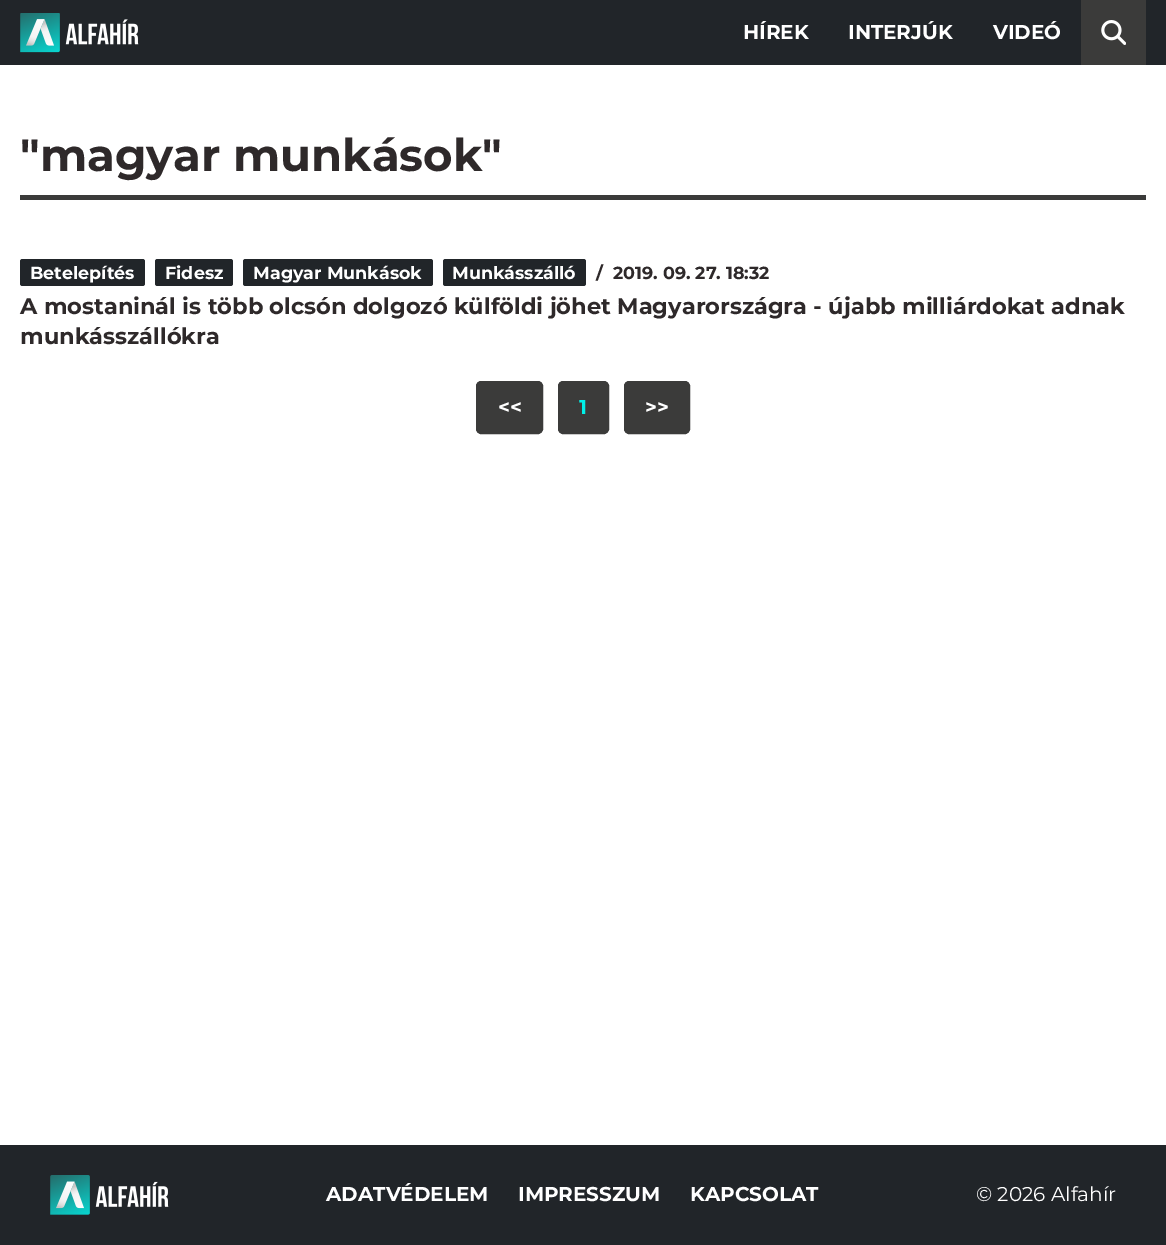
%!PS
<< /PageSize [1166 1245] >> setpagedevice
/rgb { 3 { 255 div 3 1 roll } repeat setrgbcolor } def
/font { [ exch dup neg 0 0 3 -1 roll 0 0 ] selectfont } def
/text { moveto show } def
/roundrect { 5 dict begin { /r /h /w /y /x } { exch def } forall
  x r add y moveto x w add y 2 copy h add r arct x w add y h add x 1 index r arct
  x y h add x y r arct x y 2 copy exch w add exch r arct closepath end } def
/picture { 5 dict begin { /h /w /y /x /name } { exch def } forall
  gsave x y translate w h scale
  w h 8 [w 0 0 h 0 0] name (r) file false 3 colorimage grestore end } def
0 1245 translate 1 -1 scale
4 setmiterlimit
255 255 255 rgb
0 0 1166 1245 rectfill
33 37 41 rgb
0 0 1166 65 rectfill
(img_01.rgb) 20 13 119 40 picture
59 59 58 rgb
1081 0 65 65 rectfill
(img_02.rgb) 1101 20 25 25 picture
20 195 1126 5 rectfill
33 37 41 rgb
20 259 125 27 2.5 roundrect fill
155 259 78 27 2.5 roundrect fill
243 259 190 27 2.5 roundrect fill
443 259 143 27 2.5 roundrect fill
59 59 58 rgb
476.5 381.5 66 52 4.5 roundrect gsave fill grestore
stroke
558.5 381.5 50 52 4.5 roundrect gsave fill grestore
stroke
624.5 381.5 65 52 4.5 roundrect gsave fill grestore
stroke
33 37 41 rgb
0 1145 1166 100 rectfill
(img_03.rgb) 50 1175 119 40 picture
/Montserrat-Bold 20 font
255 255 255 rgb
(HÍREK) 743 39 text
(INTERJÚK) 848 39 text
(VIDEÓ) 993 39 text
/Montserrat-Bold 45 font
46 41 42 rgb
("magyar munkások") 20 171 text
/Montserrat-Bold 17.5 font
255 255 255 rgb
(Betelepítés) 30 279 text
(Fidesz) 165 279 text
(Magyar Munkások) 253 279 text
(Munkásszálló) 452 279 text
46 41 42 rgb
(/) 596 279 text
(2019. 09. 27. 18:32) 613 279 text
/Montserrat-Bold 22.5 font
(A mostaninál is több olcsón dolgozó külföldi jöhet Magyarországra - újabb milliárdokat adnak) 20 314 text
(munkásszállókra) 20 344 text
/Montserrat-Bold 20 font
255 255 255 rgb
(<<) 498 414 text
0 240 232 rgb
(1) 579 414 text
255 255 255 rgb
(>>) 645 414 text
(ADATVÉDELEM) 326 1201 text
(IMPRESSZUM) 518 1201 text
(KAPCSOLAT) 690 1201 text
/Montserrat-Regular 20 font
(© 2026 Alfahír) 976 1201 text
showpage
